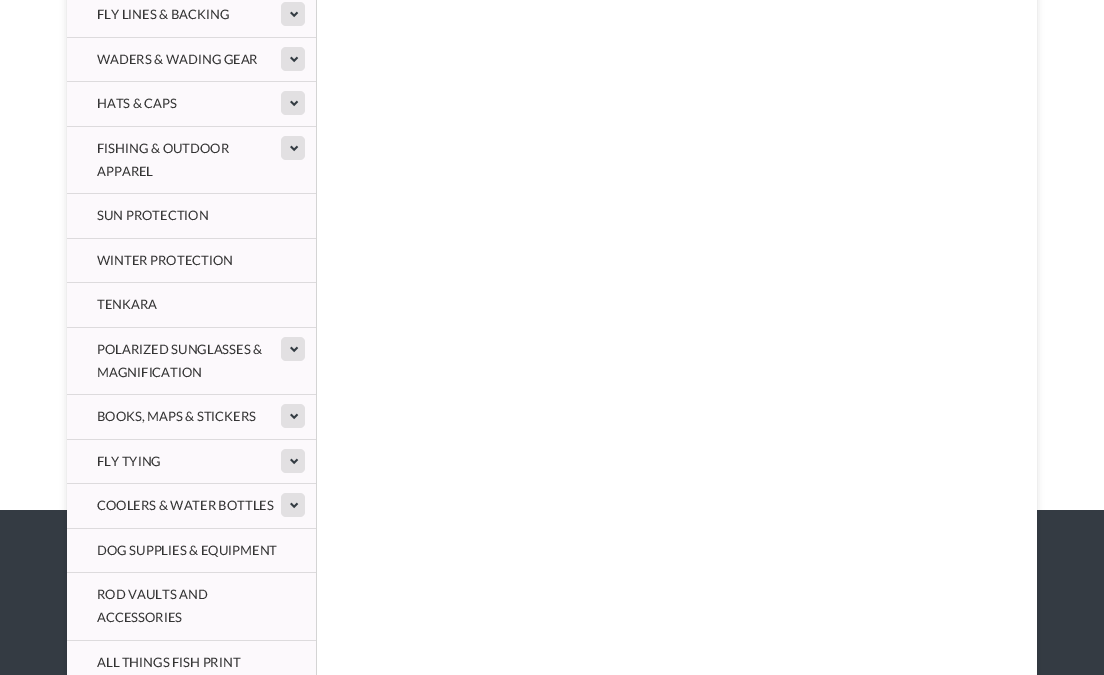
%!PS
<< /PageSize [1104 675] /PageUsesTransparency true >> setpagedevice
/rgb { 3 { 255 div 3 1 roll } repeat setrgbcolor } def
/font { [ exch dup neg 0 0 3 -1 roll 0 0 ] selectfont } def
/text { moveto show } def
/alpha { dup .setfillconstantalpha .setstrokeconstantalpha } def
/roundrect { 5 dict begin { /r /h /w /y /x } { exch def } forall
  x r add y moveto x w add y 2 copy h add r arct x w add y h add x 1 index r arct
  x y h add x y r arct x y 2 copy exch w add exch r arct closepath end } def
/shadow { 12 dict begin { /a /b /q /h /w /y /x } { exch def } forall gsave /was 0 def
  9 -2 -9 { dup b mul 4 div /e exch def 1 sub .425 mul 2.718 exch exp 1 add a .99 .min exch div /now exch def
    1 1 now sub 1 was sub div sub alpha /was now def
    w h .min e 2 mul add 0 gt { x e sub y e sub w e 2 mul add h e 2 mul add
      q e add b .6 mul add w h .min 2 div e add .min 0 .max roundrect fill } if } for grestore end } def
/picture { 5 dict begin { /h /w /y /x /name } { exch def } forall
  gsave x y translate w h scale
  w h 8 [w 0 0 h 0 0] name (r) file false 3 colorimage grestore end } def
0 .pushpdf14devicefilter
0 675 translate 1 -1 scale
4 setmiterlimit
255 255 255 rgb
0 0 1104 675 rectfill
52 59 67 rgb
0 510 1104 165 rectfill
0 0 0 rgb
67 -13 970 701 2 3.5 0.13 shadow
255 255 255 rgb
317 0 720 675 rectfill
212 212 212 rgb
316 0 1 675 rectfill
252 249 252 rgb
67 0 249 37 rectfill
226 224 226 rgb
281 2 24 24 5 roundrect fill
(img_01.rgb) 290 11 9 7 picture
252 249 252 rgb
67 38 249 43 rectfill
221 219 221 rgb
67 37 249 1 rectfill
226 224 226 rgb
281 47 24 24 5 roundrect fill
(img_01.rgb) 290 56 9 7 picture
252 249 252 rgb
67 82 249 44 rectfill
221 219 221 rgb
67 81 249 1 rectfill
226 224 226 rgb
281 91 24 24 5 roundrect fill
(img_01.rgb) 290 100 9 7 picture
252 249 252 rgb
67 127 249 66 rectfill
221 219 221 rgb
67 126 249 1 rectfill
226 224 226 rgb
281 136 24 24 5 roundrect fill
(img_01.rgb) 290 145 9 7 picture
252 249 252 rgb
67 194 249 44 rectfill
221 219 221 rgb
67 193 249 1 rectfill
252 249 252 rgb
67 239 249 43 rectfill
221 219 221 rgb
67 238 249 1 rectfill
252 249 252 rgb
67 283 249 44 rectfill
221 219 221 rgb
67 282 249 1 rectfill
252 249 252 rgb
67 328 249 66 rectfill
221 219 221 rgb
67 327 249 1 rectfill
226 224 226 rgb
281 337 24 24 5 roundrect fill
(img_01.rgb) 290 346 9 7 picture
252 249 252 rgb
67 395 249 44 rectfill
221 219 221 rgb
67 394 249 1 rectfill
226 224 226 rgb
281 404 24 24 5 roundrect fill
(img_01.rgb) 290 413 9 7 picture
252 249 252 rgb
67 440 249 43 rectfill
221 219 221 rgb
67 439 249 1 rectfill
226 224 226 rgb
281 449 24 24 5 roundrect fill
(img_01.rgb) 290 458 9 7 picture
252 249 252 rgb
67 484 249 44 rectfill
221 219 221 rgb
67 483 249 1 rectfill
226 224 226 rgb
281 493 24 24 5 roundrect fill
(img_01.rgb) 290 502 9 7 picture
252 249 252 rgb
67 529 249 43 rectfill
221 219 221 rgb
67 528 249 1 rectfill
252 249 252 rgb
67 573 249 67 rectfill
221 219 221 rgb
67 572 249 1 rectfill
252 249 252 rgb
67 641 249 34 rectfill
221 219 221 rgb
67 640 249 1 rectfill
/Lato-Regular 13 font
51 51 51 rgb
(FLY LINES & BACKING) 97 19 text
(WADERS & WADING GEAR) 97 64 text
(HATS & CAPS) 97 108 text
(FISHING & OUTDOOR) 97 153 text
(APPAREL) 97 176 text
(SUN PROTECTION) 97 220 text
(WINTER PROTECTION) 97 265 text
(TENKARA) 97 309 text
(POLARIZED SUNGLASSES &) 97 354 text
(MAGNIFICATION) 97 377 text
(BOOKS, MAPS & STICKERS) 97 421 text
(FLY TYING) 97 466 text
(COOLERS & WATER BOTTLES) 97 510 text
(DOG SUPPLIES & EQUIPMENT) 97 555 text
(ROD VAULTS AND) 97 599 text
(ACCESSORIES) 97 622 text
(ALL THINGS FISH PRINT) 97 667 text
.poppdf14devicefilter showpage
